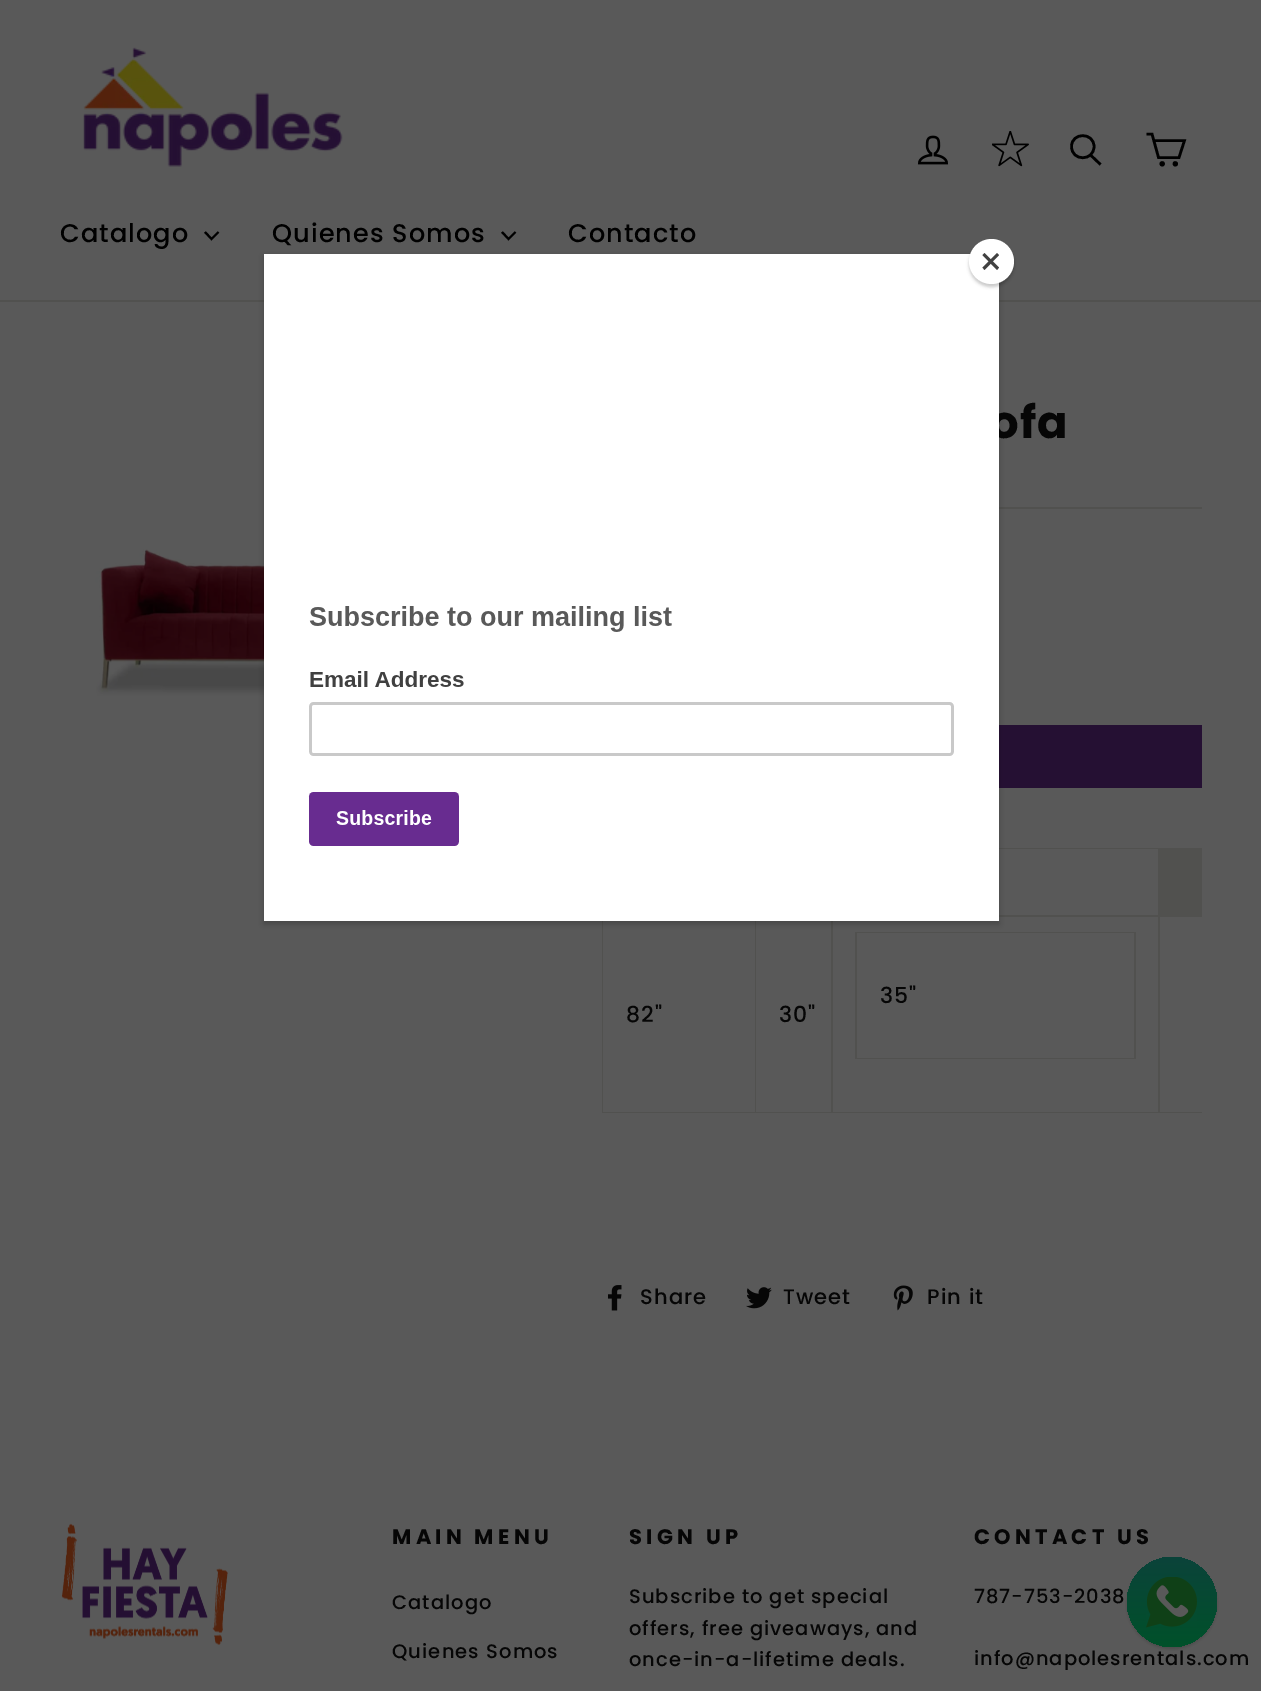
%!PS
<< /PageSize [1261 1691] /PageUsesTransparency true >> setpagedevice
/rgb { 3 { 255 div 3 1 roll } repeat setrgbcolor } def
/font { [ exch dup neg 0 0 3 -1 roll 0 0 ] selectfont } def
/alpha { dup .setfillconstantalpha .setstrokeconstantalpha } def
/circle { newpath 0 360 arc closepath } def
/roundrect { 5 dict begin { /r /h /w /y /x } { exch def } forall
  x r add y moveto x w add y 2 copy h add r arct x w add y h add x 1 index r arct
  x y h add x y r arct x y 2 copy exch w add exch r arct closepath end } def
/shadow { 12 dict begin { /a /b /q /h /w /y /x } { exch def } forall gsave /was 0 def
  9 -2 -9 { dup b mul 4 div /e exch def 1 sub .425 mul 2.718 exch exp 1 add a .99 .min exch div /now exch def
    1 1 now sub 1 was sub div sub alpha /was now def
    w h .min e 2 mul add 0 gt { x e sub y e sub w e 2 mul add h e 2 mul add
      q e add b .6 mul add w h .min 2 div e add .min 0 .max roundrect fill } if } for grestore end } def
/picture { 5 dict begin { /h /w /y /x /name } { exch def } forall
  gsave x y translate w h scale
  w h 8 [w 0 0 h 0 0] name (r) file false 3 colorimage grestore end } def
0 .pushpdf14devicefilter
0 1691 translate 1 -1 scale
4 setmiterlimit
89 89 89 rgb
0 0 1261 1691 rectfill
81 81 79 rgb
0 300 1261 2 rectfill
(img_01.rgb) 917 135 32 30 picture
(img_02.rgb) 992 131 37 36 picture
0 0 0 rgb
2.6 setlinewidth
1094 146.5 moveto 0 15 -22.5 15 -22.5 0 rcurveto 0 -14.5 22.5 -14.5 22.5 0 rcurveto closepath 1100.5 164.5 moveto -10 -9.5 rlineto stroke
1153.5 140.5 moveto 31 0 rlineto -5.5 17 rlineto -20.5 0 rlineto -6.5 -23.5 rlineto -5.5 0 rlineto stroke
1162.2 163.8 1.3 circle stroke
1175.3 163.8 1.3 circle stroke
(img_03.rgb) 83 47 260 120 picture
2.1 setlinewidth
205 232 moveto 6.5 7 rlineto 7 -7 rlineto stroke
502 232 moveto 6.5 7 rlineto 7 -7 rlineto stroke
(img_04.rgb) 60 392 204 427 picture
81 81 79 rgb
999 507 203 2 rectfill
37 16 51 rgb
999 725 203 63 rectfill
81 81 79 rgb
602 848 600 265 rectfill
89 89 89 rgb
999 849 159 66 rectfill
833 917 325 195 rectfill
81 81 79 rgb
855 932 281 127 rectfill
89 89 89 rgb
857 933 277 125 rectfill
1160 917 42 195 rectfill
603 921 152 191 rectfill
756 921 75 191 rectfill
(img_05.rgb) 608 1285 14 26 picture
(img_06.rgb) 746 1287 26 22 picture
(img_07.rgb) 893 1285 20 26 picture
(img_08.rgb) 61 1523 167 122 picture
0 0 0 rgb
264 257 735 667 0 3 0.2 shadow
1127 1559 90 90 45 1.5 0.15 shadow
gsave 1172 1602 45 circle clip newpath
<< /ShadingType 2 /ColorSpace /DeviceRGB /Coords [1172 1557 1172 1647] /Extend [true true] /Function << /FunctionType 2 /Domain [0 1] /C0 [0.043 0.263 0.227] /C1 [0 0.318 0.165] /N 1 >> >> shfill grestore
(img_10.rgb) 1146 1577 51 51 picture
/Poppins-Medium 25.5 font
60 242 moveto 1.1 0 (Catalogo) ashow
272 242 moveto 1.1 0 (Quienes Somos) ashow
568 242 moveto 1.1 0 (Contacto) ashow
/Poppins-Bold 45 font
6 6 6 rgb
990 438 moveto 1.1 0 (ofa) ashow
/Poppins-Medium 22 font
880 1003 moveto 1.1 0 (35") ashow
626 1022 moveto 1.1 0 (82") ashow
779 1022 moveto 1.1 0 (30") ashow
/Poppins-Medium 21 font
640 1304 moveto 1.1 0 (Share) ashow
783 1304 moveto 1.1 0 (Tweet) ashow
927 1304 moveto 1.1 0 (Pin it) ashow
/Poppins-Bold 21 font
392 1544 moveto 4.25 0 (MAIN MENU) ashow
/Poppins-Medium 19.5 font
392 1609 moveto 1.1 0 (Catalogo) ashow
392 1658 moveto 1.1 0 (Quienes Somos) ashow
/Poppins-Bold 21 font
629 1544 moveto 4.25 0 (SIGN UP) ashow
/Poppins-Medium 19.5 font
629 1603 moveto 1 0 (Subscribe to get special) ashow
629 1635 moveto 1 0 (offers, free giveaways, and) ashow
629 1666 moveto 1 0 (once-in-a-lifetime deals.) ashow
/Poppins-Bold 21 font
974 1544 moveto 4.25 0 (CONTACT US) ashow
/Poppins-Medium 19.5 font
974 1603 moveto 1 0 (787-753-2038) ashow
974 1665 moveto 1 0 (info@napolesrentals.com) ashow
(img_09.rgb) 264 254 735 667 picture
0 0 0 rgb
969 242 45 45 22.5 1.5 0.2 shadow
255 255 255 rgb
991.5 261.5 22.5 circle fill
65 65 65 rgb
997 253 moveto 2 2 rlineto -14.5 15 rlineto -2 -2.5 rlineto closepath fill
982.5 255 moveto 2 -2 rlineto 14.5 14.5 rlineto -2 2.5 rlineto closepath fill
.poppdf14devicefilter showpage
